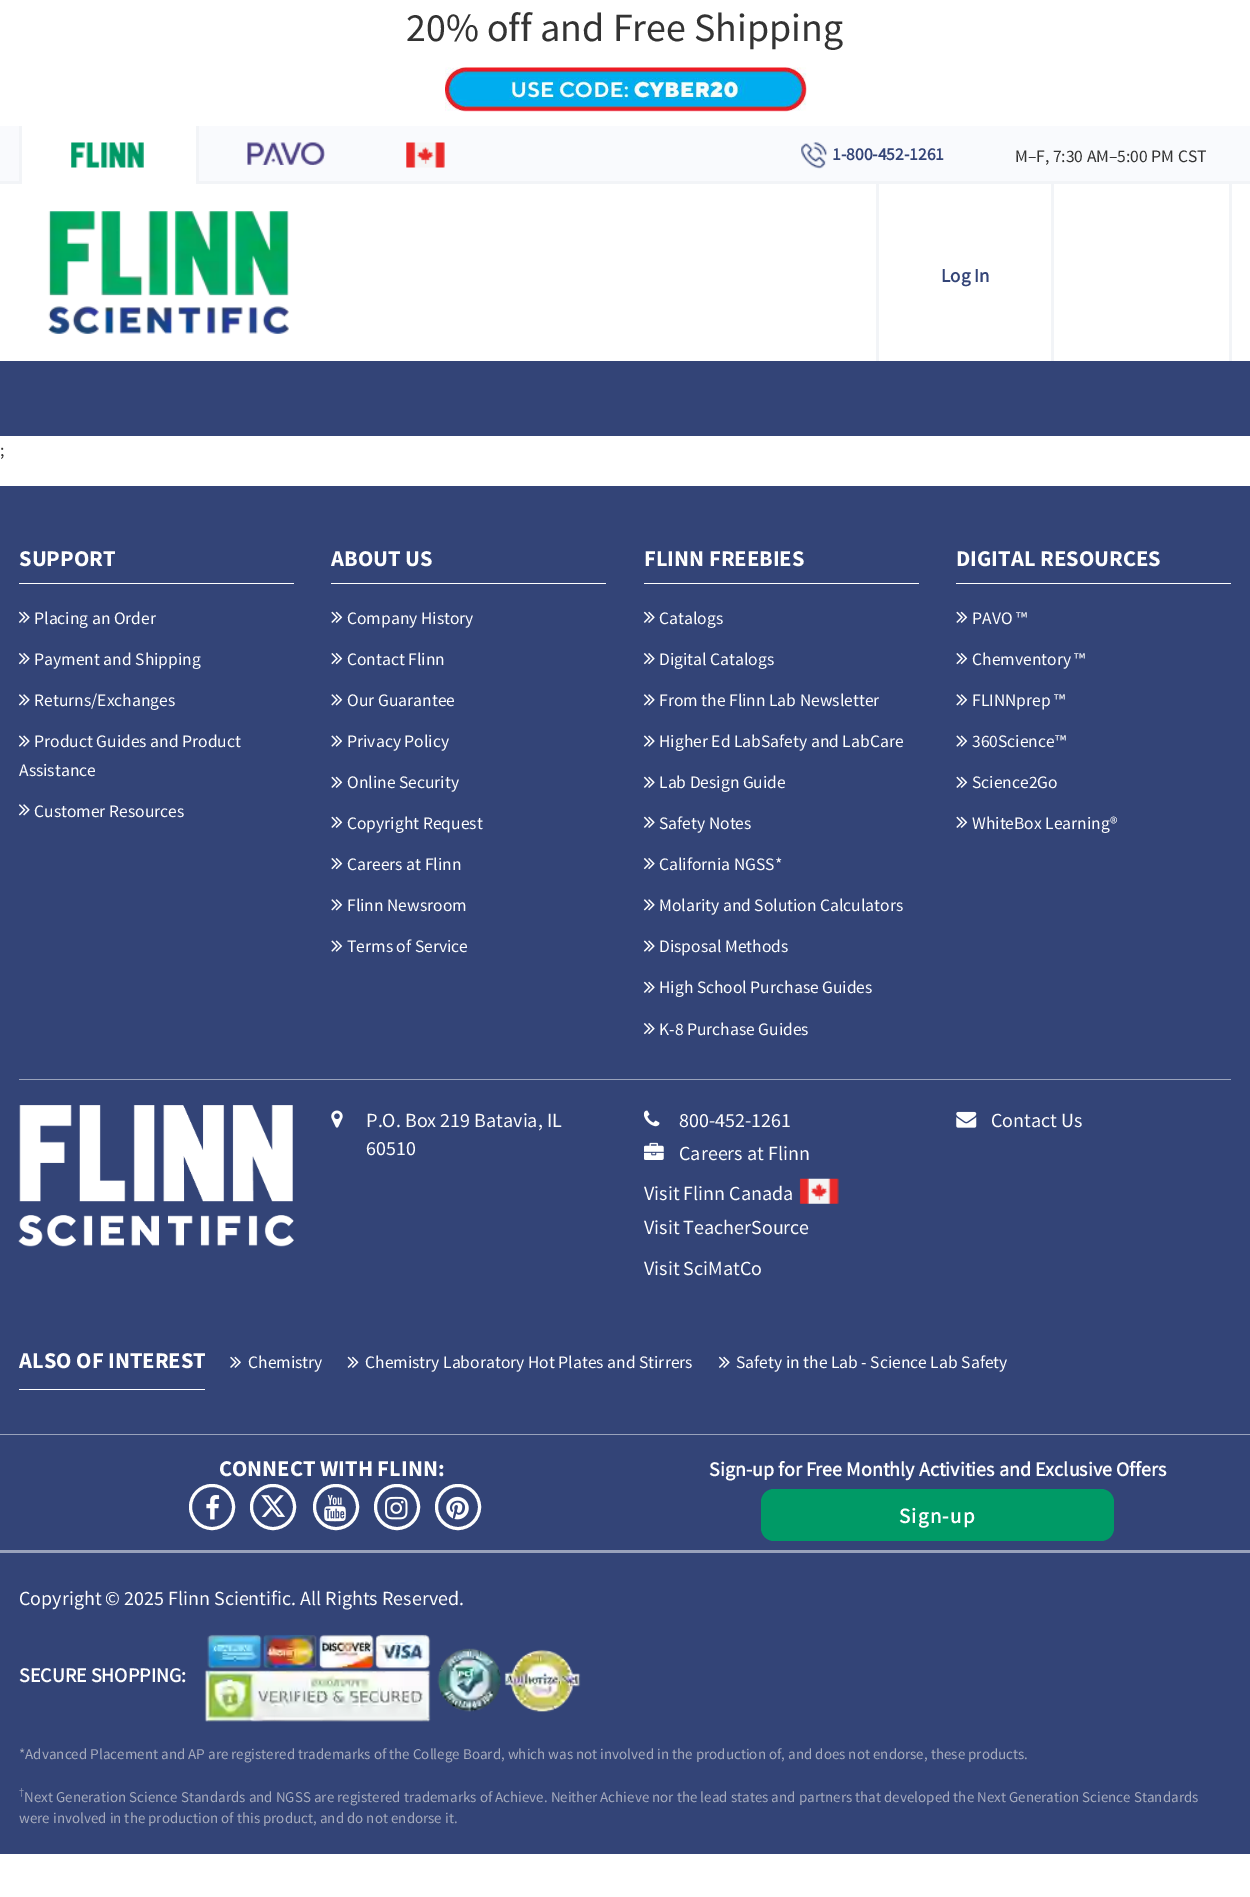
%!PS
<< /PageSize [1250 1897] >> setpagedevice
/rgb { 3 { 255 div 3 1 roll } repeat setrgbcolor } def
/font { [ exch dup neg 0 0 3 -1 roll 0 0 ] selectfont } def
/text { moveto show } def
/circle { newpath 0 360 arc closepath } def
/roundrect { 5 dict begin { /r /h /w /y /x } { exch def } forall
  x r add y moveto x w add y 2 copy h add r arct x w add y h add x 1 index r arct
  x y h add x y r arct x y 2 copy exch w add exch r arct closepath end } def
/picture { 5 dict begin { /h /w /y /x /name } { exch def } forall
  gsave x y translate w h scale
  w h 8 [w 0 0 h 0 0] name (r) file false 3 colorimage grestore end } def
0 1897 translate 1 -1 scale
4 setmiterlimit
255 255 255 rgb
0 0 1250 1897 rectfill
(img_01.rgb) 445 67 362 45 picture
249 250 253 rgb
0 126 1250 55 rectfill
242 244 247 rgb
0 181 1250 3 rectfill
255 255 255 rgb
22 126 174 58 rectfill
242 244 247 rgb
196 126 3 58 rectfill
19 126 3 58 rectfill
(img_02.rgb) 71 142 73 26 picture
(img_03.rgb) 247 142 78 23 picture
(img_04.rgb) 406 142 39 26 picture
(img_05.rgb) 801 142 27 27 picture
(img_06.rgb) 48 211 241 123 picture
1051 184 3 177 rectfill
876 184 3 177 rectfill
1229 184 3 177 rectfill
51 68 119 rgb
0 361 1250 75 rectfill
0 486 1250 1368 rectfill
255 255 255 rgb
19 583 275 1 rectfill
(img_07.rgb) 18 611 12 12 picture
(img_08.rgb) 18 653 12 12 picture
(img_09.rgb) 18 694 12 12 picture
(img_10.rgb) 18 735 12 12 picture
(img_09.rgb) 18 804 12 12 picture
331 583 275 1 rectfill
(img_11.rgb) 331 611 12 12 picture
(img_12.rgb) 331 653 12 12 picture
(img_13.rgb) 331 694 12 12 picture
(img_14.rgb) 331 735 12 12 picture
(img_11.rgb) 331 776 12 12 picture
(img_11.rgb) 331 816 12 12 picture
(img_12.rgb) 331 858 12 12 picture
(img_13.rgb) 331 899 12 12 picture
(img_14.rgb) 331 940 12 12 picture
644 583 275 1 rectfill
(img_07.rgb) 643 611 12 12 picture
(img_08.rgb) 643 653 12 12 picture
(img_09.rgb) 643 694 12 12 picture
(img_10.rgb) 643 735 12 12 picture
(img_07.rgb) 643 776 12 12 picture
(img_07.rgb) 643 816 12 12 picture
(img_08.rgb) 643 858 12 12 picture
(img_09.rgb) 643 899 12 12 picture
(img_10.rgb) 643 940 12 12 picture
(img_07.rgb) 643 981 12 12 picture
(img_08.rgb) 643 1023 12 12 picture
956 583 275 1 rectfill
(img_11.rgb) 956 611 12 12 picture
(img_12.rgb) 956 653 12 12 picture
(img_13.rgb) 956 694 12 12 picture
(img_14.rgb) 956 735 12 12 picture
(img_11.rgb) 956 776 12 12 picture
(img_11.rgb) 956 816 12 12 picture
153 162 187 rgb
19 1079 1212 1 rectfill
(img_15.rgb) 18 1105 276 142 picture
(img_16.rgb) 331 1110 12 18 picture
(img_17.rgb) 644 1110 16 17 picture
(img_18.rgb) 956 1111 21 17 picture
(img_19.rgb) 644 1142 20 18 picture
(img_20.rgb) 799 1178 40 26 picture
255 255 255 rgb
19 1389 186 1 rectfill
(img_21.rgb) 230 1356 11 12 picture
(img_22.rgb) 347 1356 12 12 picture
(img_07.rgb) 718 1356 12 12 picture
153 162 187 rgb
0 1434 1250 1 rectfill
254 254 254 rgb
3 setlinewidth
212 1507 21.5 circle stroke
(img_23.rgb) 206 1495 14 25 picture
273 1507 21.5 circle stroke
(img_24.rgb) 261 1495 25 22 picture
336 1507 21.5 circle stroke
(img_25.rgb) 324 1495 22 27 picture
397 1507 21.5 circle stroke
(img_26.rgb) 385 1496 23 24 picture
458 1507 21.5 circle stroke
(img_27.rgb) 446 1496 23 24 picture
0 154 102 rgb
761 1489 353 52 13 roundrect fill
153 162 187 rgb
0 1550 1250 3 rectfill
(img_28.rgb) 204 1634 377 88 picture
/SourceSansPro-Regular 40 font
51 51 51 rgb
(20% off and Free Shipping) 406 41 text
/SourceSansPro-Bold 17.5 font
51 68 119 rgb
(1-800-452-1261) 832 160 text
/SourceSansPro-Regular 17.5 font
51 51 51 rgb
(M–F, 7:30 AM–5:00 PM CST) 1015 162 text
/SourceSansPro-Bold 19 font
51 68 119 rgb
(Log In) 941 282 text
/SourceSansPro-Regular 17.5 font
51 51 51 rgb
(;) 0 456 text
/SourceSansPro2-Bold 22.5 font
254 254 254 rgb
(SUPPORT) 19 566 text
/SourceSansPro-Regular 17.5 font
(Placing an Order) 34 624 text
(Payment and Shipping) 34 665 text
(Returns/Exchanges) 34 706 text
(Product Guides and Product) 34 747 text
(Assistance) 19 776 text
(Customer Resources) 34 817 text
/SourceSansPro2-Bold 22.5 font
(ABOUT US) 331 566 text
/SourceSansPro-Regular 17.5 font
(Company History) 347 624 text
(Contact Flinn) 347 665 text
(Our Guarantee) 347 706 text
(Privacy Policy) 347 747 text
(Online Security) 347 788 text
(Copyright Request) 347 829 text
(Careers at Flinn) 347 870 text
(Flinn Newsroom) 347 911 text
(Terms of Service) 347 952 text
/SourceSansPro2-Bold 22.5 font
(FLINN FREEBIES) 644 566 text
/SourceSansPro-Regular 17.5 font
(Catalogs) 659 624 text
(Digital Catalogs) 659 665 text
(From the Flinn Lab Newsletter) 659 706 text
(Higher Ed LabSafety and LabCare) 659 747 text
(Lab Design Guide) 659 788 text
(Safety Notes) 659 829 text
(California NGSS*) 659 870 text
(Molarity and Solution Calculators) 659 911 text
(Disposal Methods) 659 952 text
(High School Purchase Guides) 659 993 text
(K-8 Purchase Guides) 659 1035 text
/SourceSansPro2-Bold 22.5 font
(DIGITAL RESOURCES) 956 566 text
/SourceSansPro-Regular 17.5 font
(PAVO ™) 972 624 text
(Chemventory ™) 972 665 text
(FLINNprep ™) 972 706 text
(360Science™) 972 747 text
(Science2Go) 972 788 text
(WhiteBox Learning®) 972 829 text
/SourceSansPro-Regular 20 font
(P.O. Box 219 Batavia, IL) 366 1127 text
(60510) 366 1155 text
(800-452-1261) 679 1127 text
(Contact Us) 991 1127 text
(Careers at Flinn) 679 1160 text
(Visit Flinn Canada) 644 1200 text
(Visit TeacherSource) 644 1234 text
(Visit SciMatCo) 644 1275 text
/SourceSansPro2-Bold 22.5 font
(ALSO OF INTEREST) 19 1368 text
/SourceSansPro-Regular 17.5 font
(Chemistry) 248 1368 text
(Chemistry Laboratory Hot Plates and Stirrers) 365 1368 text
(Safety in the Lab - Science Lab Safety) 736 1368 text
/SourceSansPro2-Bold 22.5 font
(CONNECT WITH FLINN:) 219 1476 text
/SourceSansPro-Bold 20 font
(Sign-up for Free Monthly Activities and Exclusive Offers) 709 1476 text
/SourceSansPro-Bold 21 font
899 1523 moveto 1.25 0 (Sign-up) ashow
/SourceSansPro-Regular 20 font
(Copyright © 2025 Flinn Scientific. All Rights Reserved.) 19 1605 text
/SourceSansPro-Bold 20 font
(SECURE SHOPPING:) 19 1682 text
/SourceSansPro-Regular 15 font
166 171 189 rgb
(*Advanced Placement and AP are registered trademarks of the College Board, which was not involved in the production of, and does not endorse, these products.) 19 1759 text
/SourceSansPro-Regular 11 font
(†) 19 1796 text
/SourceSansPro-Regular 15 font
(Next Generation Science Standards and NGSS are registered trademarks of Achieve. Neither Achieve nor the lead states and partners that developed the Next Generation Science Standards) 24 1802 text
(were involved in the production of this product, and do not endorse it.) 19 1823 text
showpage
